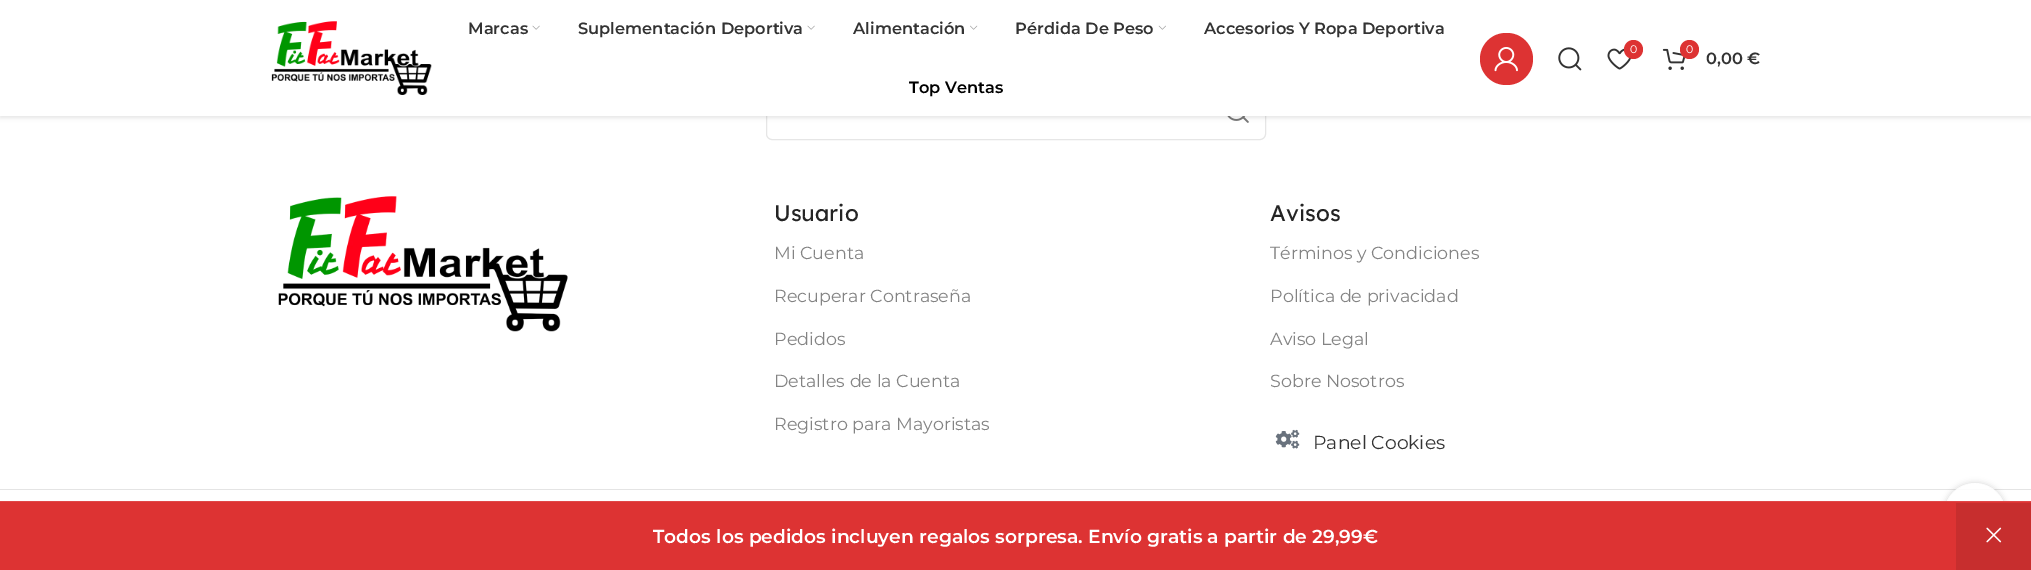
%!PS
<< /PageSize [2031 570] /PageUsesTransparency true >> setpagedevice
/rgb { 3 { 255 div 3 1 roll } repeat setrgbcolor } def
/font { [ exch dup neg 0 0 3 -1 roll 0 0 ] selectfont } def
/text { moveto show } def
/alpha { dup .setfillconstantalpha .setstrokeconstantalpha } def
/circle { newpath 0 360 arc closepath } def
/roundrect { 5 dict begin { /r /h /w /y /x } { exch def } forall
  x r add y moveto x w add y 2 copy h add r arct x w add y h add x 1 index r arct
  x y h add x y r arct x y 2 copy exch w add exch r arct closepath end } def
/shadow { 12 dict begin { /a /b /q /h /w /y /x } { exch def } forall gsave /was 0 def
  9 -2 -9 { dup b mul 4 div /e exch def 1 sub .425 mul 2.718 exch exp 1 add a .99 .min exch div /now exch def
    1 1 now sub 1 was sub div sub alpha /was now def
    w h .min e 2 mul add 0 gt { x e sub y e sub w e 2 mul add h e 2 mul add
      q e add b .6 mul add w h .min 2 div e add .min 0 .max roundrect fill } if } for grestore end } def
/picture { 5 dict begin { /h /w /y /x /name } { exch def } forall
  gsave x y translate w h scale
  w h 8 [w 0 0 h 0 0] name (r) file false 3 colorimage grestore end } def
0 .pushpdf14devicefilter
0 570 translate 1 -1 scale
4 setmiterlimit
255 255 255 rgb
0 0 2031 570 rectfill
230 230 230 rgb
766.5 83.5 499 56 5.5 roundrect stroke
(img_09.rgb) 1227 116 22 7 picture
0 0 0 rgb
0 1 2031 117 0 2 0.1 shadow
255 255 255 rgb
0 0 2031 116 rectfill
(img_01.rgb) 271 21 161 74 picture
(img_02.rgb) 532 25 8 5 picture
(img_02.rgb) 807 25 8 5 picture
(img_03.rgb) 970 25 8 5 picture
(img_04.rgb) 1158 25 8 5 picture
221 51 51 rgb
1480 33 53 52 26 roundrect fill
(img_05.rgb) 1494 47 24 25 picture
(img_06.rgb) 1558 47 24 24 picture
(img_07.rgb) 1607 48 25 22 picture
1633.5 49.5 9.5 circle fill
(img_08.rgb) 1662 48 24 22 picture
1689.5 49.5 9.5 circle fill
(img_10.rgb) 278 196 290 136 picture
(img_11.rgb) 1275 429 25 20 picture
228 228 228 rgb
0 489 2031 1 rectfill
gsave
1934 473 moveto 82 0 rlineto 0 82 rlineto -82 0 rlineto closepath 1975 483 moveto 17 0 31 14 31 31 rcurveto 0 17 -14 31 -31 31 rcurveto -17 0 -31 -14 -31 -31 rcurveto 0 -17 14 -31 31 -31 rcurveto closepath eoclip newpath
0 0 0 rgb
1944 483 62 62 31 3 0.17 shadow
grestore
0.9 alpha
255 255 255 rgb
1975 514 31 circle fill
1 alpha
221 51 51 rgb
0 502 2031 68 rectfill
224 71 71 rgb
0 501 2031 1 rectfill
199 46 46 rgb
1956 503 75 67 rectfill
(img_12.rgb) 1986 527 16 16 picture
/Montserrat-SemiBold 16.25 font
51 51 51 rgb
(Marcas) 468 34 text
(Suplementación Deportiva) 578 34 text
(Alimentación) 853 34 text
(Pérdida De Peso) 1015 34 text
(Accesorios Y Ropa Deportiva) 1204 34 text
0 0 0 rgb
(Top Ventas) 909 93 text
/Montserrat-Regular 11 font
255 255 255 rgb
(0) 1630 53 text
(0) 1686 53 text
/Montserrat-SemiBold 16.25 font
51 51 51 rgb
(0,00 €) 1706 64 text
/LexendDeca-Regular 22.5 font
36 36 36 rgb
(Usuario) 774 221 text
/Montserrat-Regular 17.5 font
131 131 131 rgb
(Mi Cuenta) 774 259 text
(Recuperar Contraseña) 774 302 text
(Pedidos) 774 345 text
(Detalles de la Cuenta) 774 387 text
(Registro para Mayoristas) 774 430 text
/LexendDeca-Regular 22.5 font
36 36 36 rgb
(Avisos) 1270 221 text
/Montserrat-Regular 17.5 font
131 131 131 rgb
(Términos y Condiciones) 1270 259 text
(Política de privacidad) 1270 302 text
(Aviso Legal) 1270 345 text
(Sobre Nosotros) 1270 387 text
/Montserrat-Regular 18.75 font
51 51 51 rgb
(Panel Cookies) 1313 449 text
/Montserrat-SemiBold 18.75 font
255 255 255 rgb
(Todos los pedidos incluyen regalos sorpresa. Envío gratis a partir de 29,99€) 653 543 text
.poppdf14devicefilter showpage
